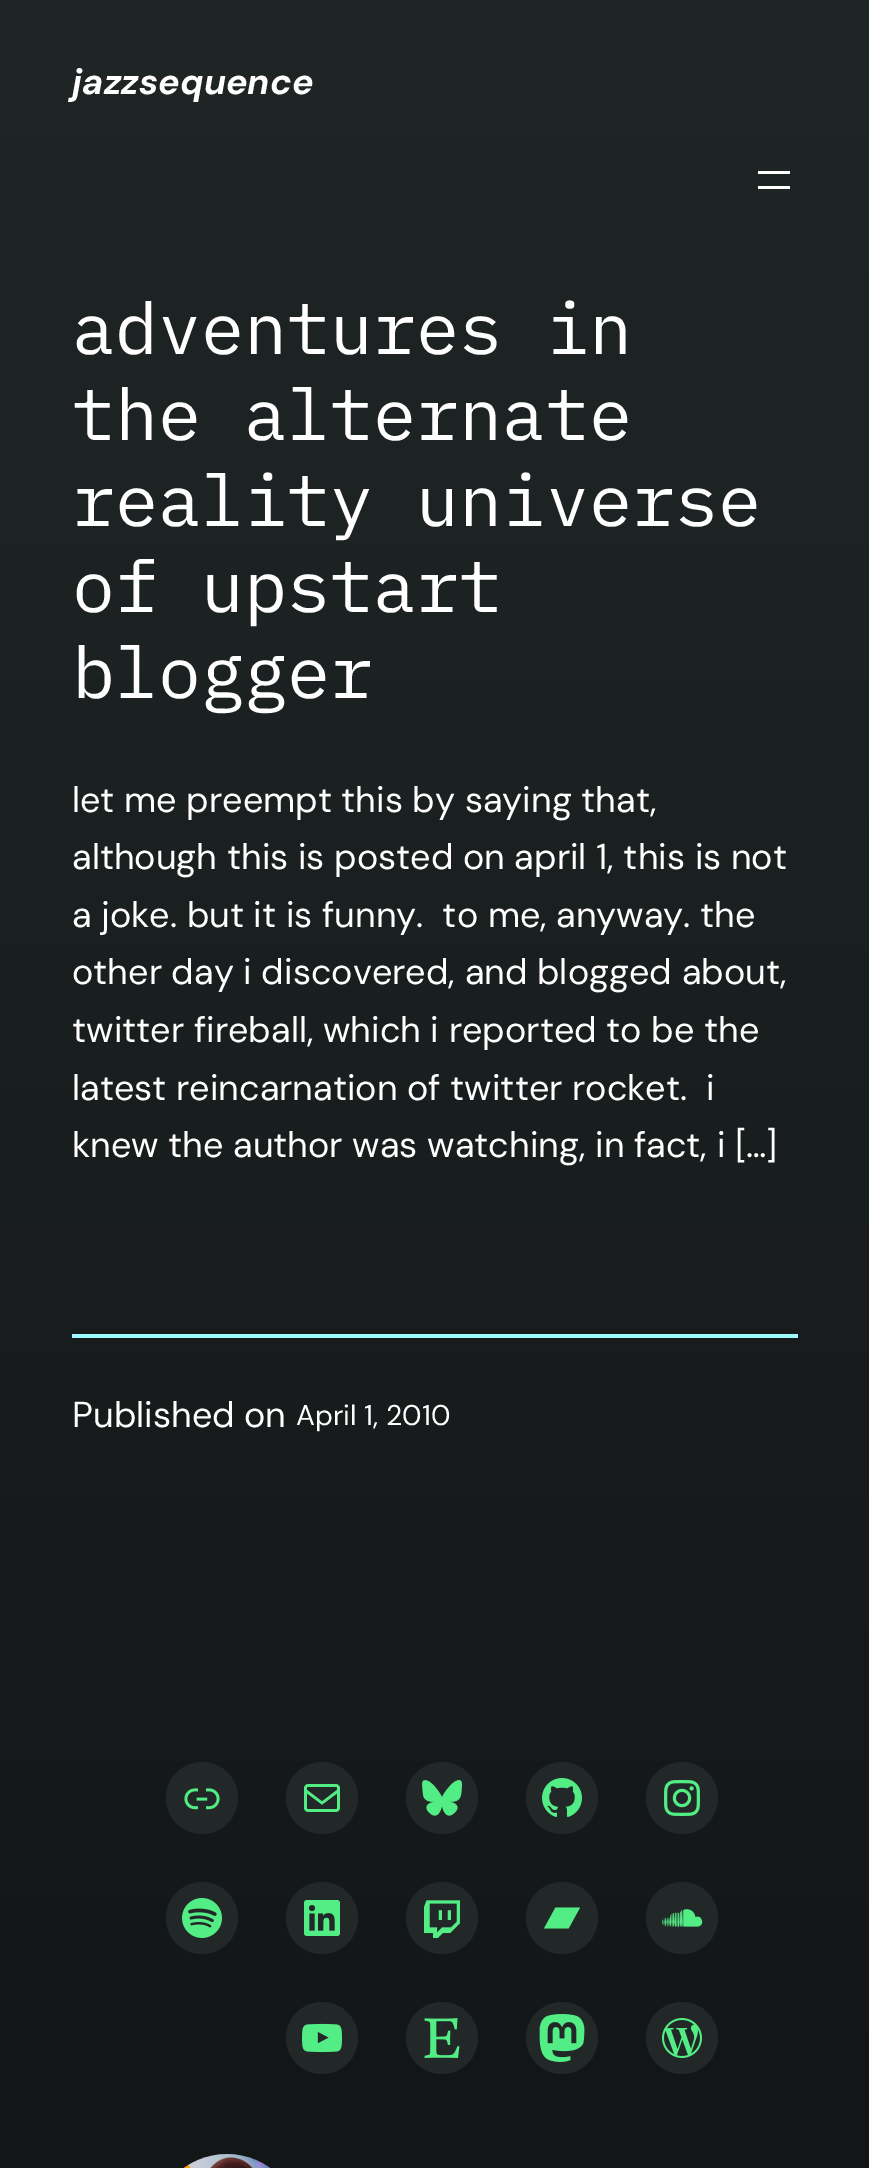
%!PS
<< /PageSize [869 2168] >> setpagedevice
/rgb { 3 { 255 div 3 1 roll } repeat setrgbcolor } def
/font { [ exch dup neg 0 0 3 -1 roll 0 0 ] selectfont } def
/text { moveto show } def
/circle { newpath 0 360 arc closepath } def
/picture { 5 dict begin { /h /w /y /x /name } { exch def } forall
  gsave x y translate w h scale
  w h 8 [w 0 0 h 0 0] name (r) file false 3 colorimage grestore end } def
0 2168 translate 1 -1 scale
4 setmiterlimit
255 255 255 rgb
0 0 869 2168 rectfill
gsave 0 0 moveto 869 0 rlineto 0 2168 rlineto -869 0 rlineto closepath clip newpath
<< /ShadingType 2 /ColorSpace /DeviceRGB /Coords [435 0 435 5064] /Extend [true true] /Function << /FunctionType 2 /Domain [0 1] /C0 [0.125 0.149 0.149] /C1 [0.004 0.004 0.004] /N 1 >> >> shfill grestore
758 171 32 3 rectfill
758 186 32 3 rectfill
158 249 253 rgb
72 1334 726 4 rectfill
34 40 40 rgb
202 1798 36 circle fill
(img_01.rgb) 184 1788 36 22 picture
322 1798 36 circle fill
(img_02.rgb) 304 1784 36 28 picture
442 1798 36 circle fill
(img_03.rgb) 422 1780 40 36 picture
562 1798 36 circle fill
(img_04.rgb) 542 1778 40 39 picture
682 1798 36 circle fill
(img_05.rgb) 664 1780 36 36 picture
202 1918 36 circle fill
(img_06.rgb) 182 1898 40 40 picture
322 1918 36 circle fill
(img_07.rgb) 304 1900 36 36 picture
442 1918 36 circle fill
(img_08.rgb) 424 1900 36 38 picture
562 1918 36 circle fill
83 237 133 rgb
568.5 1928.5 moveto -24.5 0 rlineto 11.5 -21 rlineto 24.5 0 rlineto -11.5 21 rlineto fill
34 40 40 rgb
682 1918 36 circle fill
(img_09.rgb) 662 1909 41 18 picture
322 2038 36 circle fill
(img_10.rgb) 302 2023 40 30 picture
442 2038 36 circle fill
(img_11.rgb) 424 2018 36 40 picture
562 2038 36 circle fill
(img_12.rgb) 539 2014 46 48 picture
682 2038 36 circle fill
(img_13.rgb) 662 2018 40 40 picture
(img_14.rgb) 183 2154 88 14 picture
/DMSans-BoldItalic 36 font
255 255 255 rgb
(jazzsequence) 72 94 text
/IBMPlexMono-Regular 71.75 font
(adventures in) 72 354 text
(the alternate) 72 440 text
(reality universe) 72 526 text
(of upstart) 72 612 text
(blogger) 72 698 text
/DMSans-Regular 36 font
(let me preempt this by saying that,) 72 812 text
(although this is posted on april 1, this is not) 72 869 text
(a joke. but it is funny.  to me, anyway. the) 72 927 text
(other day i discovered, and blogged about,) 72 984 text
(twitter fireball, which i reported to be the) 72 1042 text
(latest reincarnation of twitter rocket.  i) 72 1100 text
(knew the author was watching, in fact, i […]) 72 1157 text
(Published on) 72 1427 text
/DMSans-Regular 28.5 font
(April 1, 2010) 296 1425 text
showpage
